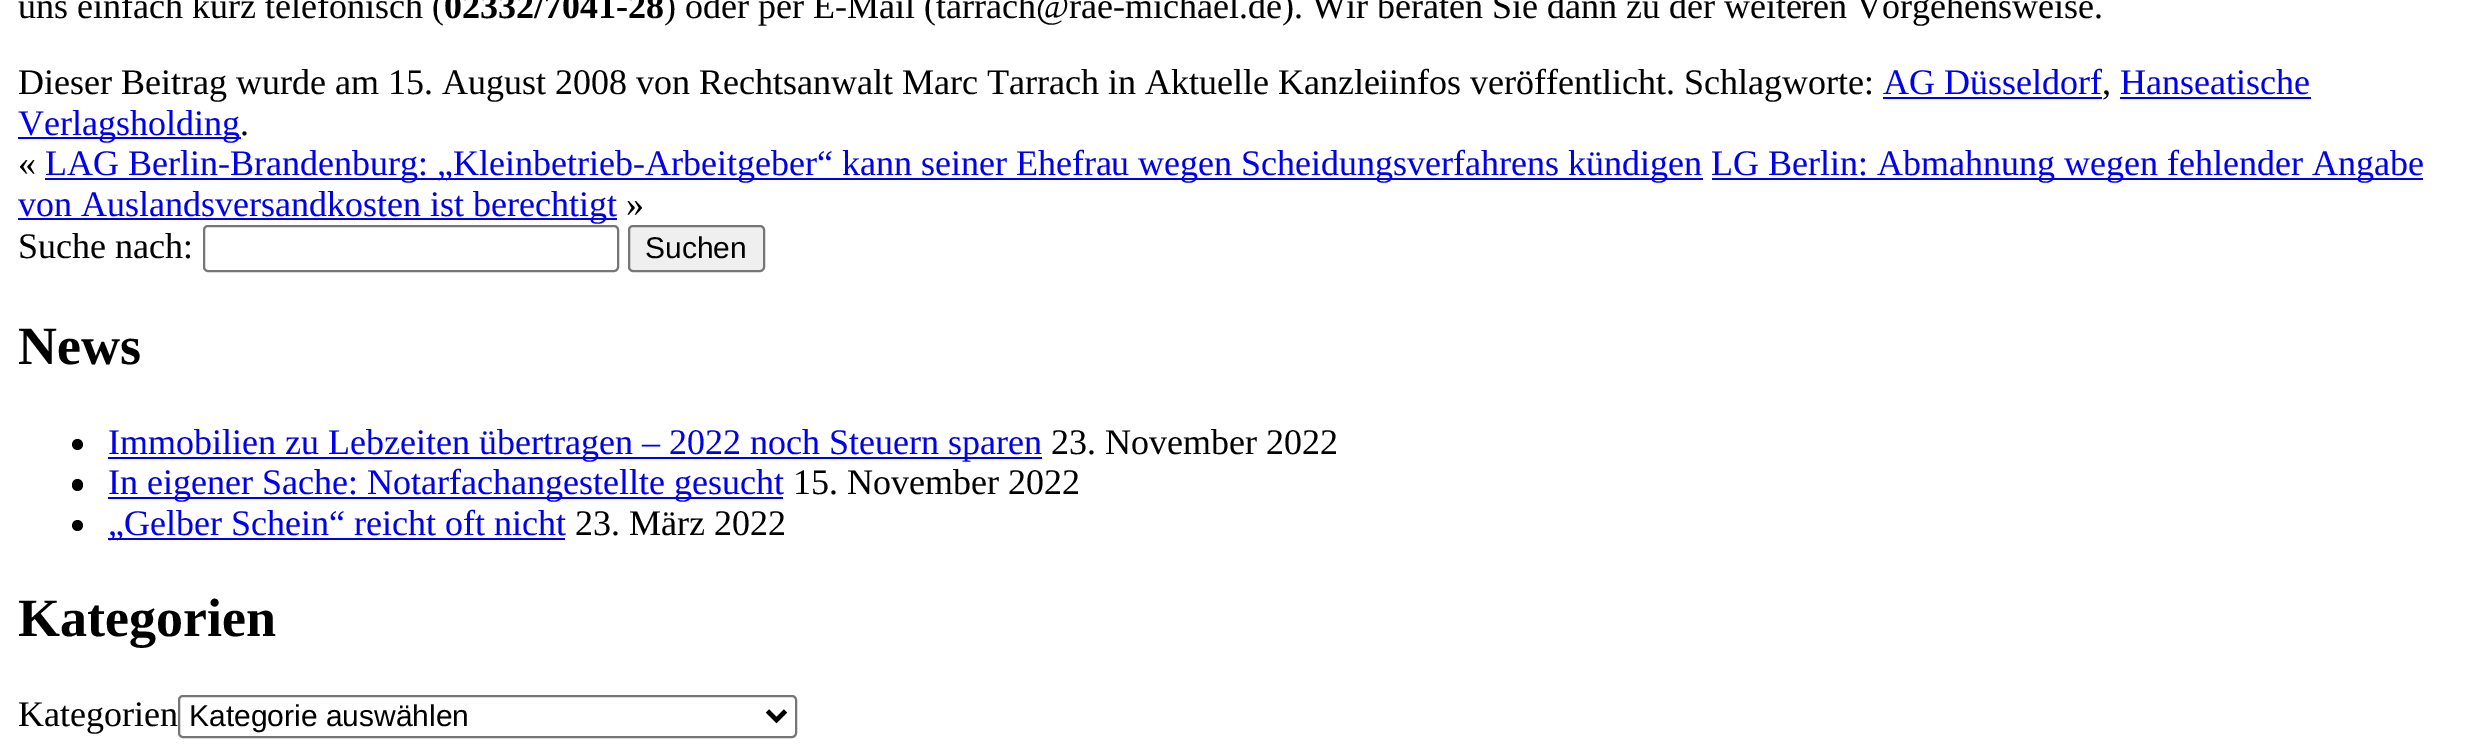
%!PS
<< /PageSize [2476 747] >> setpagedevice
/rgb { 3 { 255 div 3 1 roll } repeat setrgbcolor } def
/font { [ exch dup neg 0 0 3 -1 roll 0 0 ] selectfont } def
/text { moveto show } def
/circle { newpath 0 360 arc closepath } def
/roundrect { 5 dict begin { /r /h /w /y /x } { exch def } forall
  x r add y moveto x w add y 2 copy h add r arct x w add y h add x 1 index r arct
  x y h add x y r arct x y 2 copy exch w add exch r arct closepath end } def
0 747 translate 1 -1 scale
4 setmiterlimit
255 255 255 rgb
0 0 2476 747 rectfill
0 0 238 rgb
1883 97 219 2 rectfill
2120 97 191 2 rectfill
18 137 223 2 rectfill
45 178 1658 2 rectfill
1712 178 711 2 rectfill
18 218 599 2 rectfill
118 118 118 rgb
2 setlinewidth
204 226 414 45 4 roundrect stroke
239 239 239 rgb
629 226 135 45 4 roundrect gsave fill grestore
118 118 118 rgb
stroke
0 0 0 rgb
77.5 444.5 5.5 circle fill
0 0 238 rgb
108 457 934 2 rectfill
0 0 0 rgb
72 479 11 12 5.5 roundrect fill
0 0 238 rgb
108 497 675 2 rectfill
0 0 0 rgb
77.5 525.5 5.5 circle fill
0 0 238 rgb
108 538 457 2 rectfill
118 118 118 rgb
179 696 617 41 4 roundrect stroke
0 0 0 rgb
4.5 setlinewidth
767.5 711 moveto 9 9 rlineto 9 -9 rlineto stroke
/LiberationSerif-Regular 36 font
(uns einfach kurz telefonisch \() 18 18 text
/LiberationSerif-Bold 36 font
(02332/7041-28) 444 18 text
/LiberationSerif-Regular 36 font
(\) oder per E-Mail \(tarrach@rae-michael.de\). Wir beraten Sie dann zu der weiteren Vorgehensweise.) 664 18 text
(Dieser Beitrag wurde am 15. August 2008 von Rechtsanwalt Marc Tarrach in Aktuelle Kanzleiinfos veröffentlicht. Schlagworte:) 18 94 text
0 0 238 rgb
(AG Düsseldorf) 1883 94 text
0 0 0 rgb
(,) 2102 94 text
0 0 238 rgb
(Hanseatische) 2120 94 text
(Verlagsholding) 18 135 text
0 0 0 rgb
(.) 240 135 text
(«) 18 175 text
0 0 238 rgb
(LAG Berlin-Brandenburg: „Kleinbetrieb-Arbeitgeber“ kann seiner Ehefrau wegen Scheidungsverfahrens kündigen) 45 175 text
(LG Berlin: Abmahnung wegen fehlender Angabe) 1711 175 text
(von Auslandsversandkosten ist berechtigt) 18 216 text
0 0 0 rgb
(») 626 216 text
(Suche nach:) 18 258 text
/LiberationSans-Regular 30 font
(Suchen) 645 258 text
/LiberationSerif-Bold 54 font
(News) 18 364 text
/LiberationSerif-Regular 36 font
0 0 238 rgb
(Immobilien zu Lebzeiten übertragen – 2022 noch Steuern sparen) 108 454 text
0 0 0 rgb
(23. November 2022) 1051 454 text
0 0 238 rgb
(In eigener Sache: Notarfachangestellte gesucht) 108 494 text
0 0 0 rgb
(15. November 2022) 793 494 text
0 0 238 rgb
(„Gelber Schein“ reicht oft nicht) 108 535 text
0 0 0 rgb
(23. März 2022) 575 535 text
/LiberationSerif-Bold 54 font
(Kategorien) 18 636 text
/LiberationSerif-Regular 36 font
(Kategorien) 18 726 text
/LiberationSans-Regular 30 font
(Kategorie auswählen) 189 726 text
showpage
